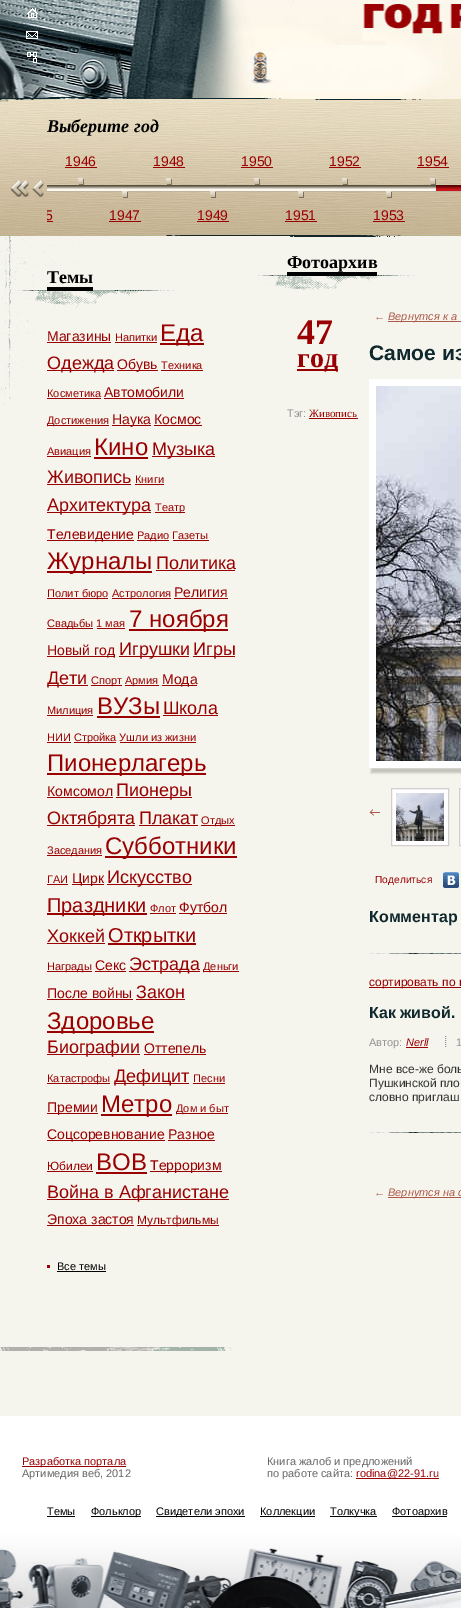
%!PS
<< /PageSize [461 1608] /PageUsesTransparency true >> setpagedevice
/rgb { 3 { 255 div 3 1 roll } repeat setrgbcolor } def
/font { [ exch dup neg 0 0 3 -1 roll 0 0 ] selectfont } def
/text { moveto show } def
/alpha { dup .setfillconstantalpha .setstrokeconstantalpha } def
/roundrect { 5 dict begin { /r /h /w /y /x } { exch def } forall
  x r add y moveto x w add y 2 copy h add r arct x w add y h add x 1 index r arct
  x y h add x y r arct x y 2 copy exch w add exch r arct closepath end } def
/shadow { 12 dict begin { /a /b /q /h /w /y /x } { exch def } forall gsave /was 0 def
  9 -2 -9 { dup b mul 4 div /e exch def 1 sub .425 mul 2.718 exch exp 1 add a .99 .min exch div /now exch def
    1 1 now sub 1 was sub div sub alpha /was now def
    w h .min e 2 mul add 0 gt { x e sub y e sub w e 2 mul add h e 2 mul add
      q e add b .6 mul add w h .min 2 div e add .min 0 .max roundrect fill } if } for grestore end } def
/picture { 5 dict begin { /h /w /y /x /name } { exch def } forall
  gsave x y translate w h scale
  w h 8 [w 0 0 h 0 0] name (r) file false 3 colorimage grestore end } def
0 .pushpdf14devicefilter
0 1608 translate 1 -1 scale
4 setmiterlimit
245 245 237 rgb
0 0 461 1608 rectfill
(img_01.rgb) 0 0 461 236 picture
(img_02.rgb) 0 1416 461 192 picture
(img_03.rgb) 27 8 11 10 picture
(img_04.rgb) 26 31 12 8 picture
(img_05.rgb) 27 52 10 11 picture
(img_06.rgb) 11 180 18 17 picture
(img_07.rgb) 32 180 12 17 picture
(img_08.rgb) 47 153 414 45 picture
153 0 2 rgb
65 167 32 1 rectfill
153 167 32 1 rectfill
241 167 32 1 rectfill
329 167 32 1 rectfill
417 167 32 1 rectfill
(img_09.rgb) 436 185 25 6 picture
47 221 6 1 rectfill
109 221 32 1 rectfill
197 221 32 1 rectfill
285 221 32 1 rectfill
373 221 32 1 rectfill
(img_10.rgb) 0 236 461 169 picture
(img_11.rgb) 0 1347 232 4 picture
(img_12.rgb) 18 290 157 15 picture
0 0 0 rgb
47 287 46 4 rectfill
153 0 2 rgb
47 342 64 1 rectfill
115 342 42 1 rectfill
160 343 44 2 rectfill
47 370 67 1 rectfill
117 370 41 1 rectfill
161 370 42 1 rectfill
47 398 54 1 rectfill
104 398 80 1 rectfill
47 425 62 1 rectfill
112 425 39 1 rectfill
154 425 48 1 rectfill
47 456 44 1 rectfill
94 457 54 2 rectfill
152 456 63 1 rectfill
47 484 84 1 rectfill
135 484 29 1 rectfill
47 512 104 1 rectfill
155 512 30 1 rectfill
47 540 87 1 rectfill
137 540 32 1 rectfill
173 540 36 1 rectfill
47 571 105 2 rectfill
156 570 79 1 rectfill
47 598 61 1 rectfill
112 598 59 1 rectfill
174 598 54 1 rectfill
47 628 46 1 rectfill
97 628 28 1 rectfill
129 629 99 2 rectfill
47 656 68 1 rectfill
119 656 70 1 rectfill
193 656 42 1 rectfill
47 685 41 1 rectfill
91 685 31 1 rectfill
125 685 34 1 rectfill
162 685 35 1 rectfill
47 715 46 1 rectfill
97 716 63 2 rectfill
163 715 55 1 rectfill
47 742 24 1 rectfill
74 742 42 1 rectfill
120 742 76 1 rectfill
47 773 159 2 rectfill
47 797 66 1 rectfill
116 797 76 1 rectfill
47 825 88 1 rectfill
139 825 59 1 rectfill
201 825 34 1 rectfill
47 855 55 1 rectfill
105 856 132 2 rectfill
47 884 21 1 rectfill
72 884 32 1 rectfill
107 884 85 1 rectfill
47 913 100 2 rectfill
150 913 26 1 rectfill
179 913 48 1 rectfill
47 943 58 1 rectfill
108 943 88 2 rectfill
47 971 45 1 rectfill
95 971 31 1 rectfill
129 971 71 1 rectfill
203 971 36 1 rectfill
47 999 86 1 rectfill
136 999 49 1 rectfill
47 1031 107 2 rectfill
47 1054 93 1 rectfill
144 1054 62 1 rectfill
47 1083 63 1 rectfill
114 1083 75 1 rectfill
193 1083 32 1 rectfill
47 1113 51 1 rectfill
101 1114 71 2 rectfill
176 1113 52 1 rectfill
47 1140 118 1 rectfill
168 1140 47 1 rectfill
47 1171 46 1 rectfill
96 1172 51 2 rectfill
150 1171 72 1 rectfill
47 1199 182 1 rectfill
47 1225 87 1 rectfill
137 1225 82 1 rectfill
47 1265 3 3 rectfill
0 0 0 rgb
57 1271 49 1 rectfill
(img_13.rgb) 258 275 157 15 picture
287 272 90 4 rectfill
153 0 2 rgb
297 369 41 2 rectfill
309 418 49 1 rectfill
174 90 75 rgb
388 321 73 1 rectfill
197 196 186 rgb
371 384 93 389 0 1 1 shadow
255 255 255 rgb
7 setlinewidth
372.5 382.5 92 382 rectstroke
(img_14.rgb) 376 386 85 375 picture
(img_15.rgb) 369 809 11 7 picture
391.5 788.5 moveto 57 0 rlineto 0 57 rlineto -57 0 rlineto closepath gsave fill grestore
211 206 205 rgb
1 setlinewidth
stroke
(img_16.rgb) 396 793 48 48 picture
255 255 255 rgb
459.5 788.5 moveto 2 0 rlineto 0 57 rlineto -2 0 rlineto closepath gsave fill grestore
211 206 205 rgb
stroke
(img_17.rgb) 443 872 16 16 picture
(img_18.rgb) 369 953 92 1 picture
153 0 2 rgb
369 987 92 1 rectfill
(img_18.rgb) 369 1132 92 1 picture
406 1047 22 1 rectfill
146 146 146 rgb
[1 1] 0 setdash
445.5 1036 moveto 0 12 rlineto stroke
174 90 75 rgb
388 1197 73 1 rectfill
153 0 2 rgb
22 1466 104 1 rectfill
356 1478 83 1 rectfill
0 0 0 rgb
47 1516 28 1 rectfill
91 1516 50 1 rectfill
156 1516 89 1 rectfill
260 1516 55 1 rectfill
330 1516 47 1 rectfill
392 1516 55 1 rectfill
/LiberationSerif-BoldItalic 18 font
(Выберите год) 47 132 text
/LiberationSans-Regular 14 font
153 0 2 rgb
(1946) 65 166 text
(1948) 153 166 text
(1950) 241 166 text
(1952) 329 166 text
(1954) 417 166 text
gsave
47 153 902 71 rectclip
(5) 45 220 text
grestore
(1947) 109 220 text
(1949) 197 220 text
(1951) 285 220 text
(1953) 373 220 text
/LiberationSerif-Bold 18 font
0 0 0 rgb
(Темы) 47 283 text
/LiberationSans-Regular 14 font
153 0 2 rgb
(Магазины) 47 341 text
/LiberationSans-Regular 11 font
(Напитки) 115 341 text
/LiberationSans-Regular 24 font
(Еда) 160 341 text
/LiberationSans-Regular 18 font
(Одежда) 47 369 text
/LiberationSans-Regular 14 font
(Обувь) 117 369 text
/LiberationSans-Regular 11 font
(Техника) 161 369 text
(Косметика) 47 397 text
/LiberationSans-Regular 14 font
(Автомобили) 104 397 text
/LiberationSans-Regular 11 font
(Достижения) 47 424 text
/LiberationSans-Regular 14 font
(Наука) 112 424 text
(Космос) 154 424 text
/LiberationSans-Regular 11 font
(Авиация) 47 455 text
/LiberationSans-Regular 24 font
(Кино) 94 455 text
/LiberationSans-Regular 18 font
(Музыка) 152 455 text
(Живопись) 47 483 text
/LiberationSans-Regular 11 font
(Книги) 135 483 text
/LiberationSans-Regular 18 font
(Архитектура) 47 511 text
/LiberationSans-Regular 11 font
(Театр) 155 511 text
/LiberationSans-Regular 14 font
(Телевидение) 47 539 text
/LiberationSans-Regular 11 font
(Радио Газеты) 137 539 text
/LiberationSans-Regular 24 font
(Журналы) 47 569 text
/LiberationSans-Regular 18 font
(Политика) 156 569 text
/LiberationSans-Regular 11 font
(Полит бюро) 47 597 text
(Астрология) 112 597 text
/LiberationSans-Regular 14 font
(Религия) 174 597 text
/LiberationSans-Regular 11 font
(Свадьбы 1 мая) 47 627 text
/LiberationSans-Regular 24 font
(7 ноября) 129 627 text
/LiberationSans-Regular 14 font
(Новый год) 47 655 text
/LiberationSans-Regular 18 font
(Игрушки) 119 655 text
(Игры) 193 655 text
(Дети) 47 684 text
/LiberationSans-Regular 11 font
(Спорт) 91 684 text
(Армия) 125 684 text
/LiberationSans-Regular 14 font
(Мода) 162 684 text
/LiberationSans-Regular 11 font
(Милиция) 47 714 text
/LiberationSans-Regular 24 font
(ВУЗы) 97 714 text
/LiberationSans-Regular 18 font
(Школа) 163 714 text
/LiberationSans-Regular 11 font
(НИИ) 47 741 text
(Стройка Ушли из жизни) 74 741 text
/LiberationSans-Regular 24 font
(Пионерлагерь) 47 771 text
/LiberationSans-Regular 14 font
(Комсомол) 47 796 text
/LiberationSans-Regular 18 font
(Пионеры) 116 796 text
(Октябрята) 47 824 text
(Плакат) 139 824 text
/LiberationSans-Regular 11 font
(Отдых) 201 824 text
(Заседания) 47 854 text
/LiberationSans-Regular 24 font
(Субботники) 105 854 text
/LiberationSans-Regular 11 font
(ГАИ) 47 883 text
/LiberationSans-Regular 14 font
(Цирк) 72 883 text
/LiberationSans-Regular 18 font
(Искусство) 107 883 text
/LiberationSans-Regular 20 font
(Праздники) 47 912 text
/LiberationSans-Regular 11 font
(Флот) 150 912 text
/LiberationSans-Regular 14 font
(Футбол) 179 912 text
/LiberationSans-Regular 18 font
(Хоккей) 47 942 text
/LiberationSans-Regular 20 font
(Открытки) 108 942 text
/LiberationSans-Regular 11 font
(Награды) 47 970 text
/LiberationSans-Regular 14 font
(Секс) 95 970 text
/LiberationSans-Regular 18 font
(Эстрада) 129 970 text
/LiberationSans-Regular 11 font
(Деньги) 203 970 text
/LiberationSans-Regular 14 font
(После войны) 47 998 text
/LiberationSans-Regular 18 font
(Закон) 136 998 text
/LiberationSans-Regular 24 font
(Здоровье) 47 1029 text
/LiberationSans-Regular 18 font
(Биографии) 47 1053 text
/LiberationSans-Regular 14 font
(Оттепель) 144 1053 text
/LiberationSans-Regular 11 font
(Катастрофы) 47 1082 text
/LiberationSans-Regular 18 font
(Дефицит) 114 1082 text
/LiberationSans-Regular 11 font
(Песни) 193 1082 text
/LiberationSans-Regular 14 font
(Премии) 47 1112 text
/LiberationSans-Regular 24 font
(Метро) 101 1112 text
/LiberationSans-Regular 11 font
(Дом и быт) 176 1112 text
/LiberationSans-Regular 14 font
(Соцсоревнование) 47 1139 text
(Разное) 168 1139 text
/LiberationSans-Regular 12 font
(Юбилеи) 47 1170 text
/LiberationSans-Regular 24 font
(ВОВ) 96 1170 text
/LiberationSans-Regular 14 font
(Терроризм) 150 1170 text
/LiberationSans-Regular 18 font
(Война в Афганистане) 47 1198 text
/LiberationSans-Regular 14 font
(Эпоха застоя) 47 1224 text
/LiberationSans-Regular 12 font
(Мультфильмы) 137 1224 text
/LiberationSans-Regular 11 font
0 0 0 rgb
(Все темы) 57 1270 text
/LiberationSerif-Bold 18 font
(Фотоархив) 287 268 text
/LiberationSerif-Bold 36 font
153 0 2 rgb
(47) 297 344 text
/LiberationSerif-Bold 28 font
(год) 297 367 text
/LiberationSans-Regular 11 font
146 146 146 rgb
(Тэг:) 287 417 text
/LiberationSerif-Regular 11 font
153 0 2 rgb
(Живопись) 309 417 text
/LiberationSans-Regular 11 font
174 90 75 rgb
(←) 374 320 text
/LiberationSans-Italic 11 font
(Вернутся к а) 388 320 text
/LiberationSans-Bold 21 font
15 40 45 rgb
(Самое из) 369 360 text
/LiberationSans-Regular 10.25 font
153 0 2 rgb
(Поделиться) 375 883 text
/LiberationSans-Bold 16 font
15 40 45 rgb
(Комментар) 369 922 text
/LiberationSans-Regular 12 font
153 0 2 rgb
(сортировать по в) 369 986 text
/LiberationSans-Bold 16 font
15 40 45 rgb
(Как живой.) 369 1018 text
/LiberationSans-Regular 11 font
146 146 146 rgb
(Автор:) 369 1046 text
/LiberationSans-Italic 11 font
153 0 2 rgb
(Nerll) 406 1046 text
/LiberationSans-Regular 11 font
146 146 146 rgb
(1) 456 1046 text
/LiberationSans-Regular 12 font
51 51 51 rgb
(Мне все-же боль) 369 1073 text
(Пушкинской пло) 369 1087 text
(словно приглаш) 369 1101 text
/LiberationSans-Regular 11 font
174 90 75 rgb
(←) 374 1196 text
/LiberationSans-Italic 11 font
(Вернутся на с) 388 1196 text
/LiberationSans-Regular 11 font
153 0 2 rgb
(Разработка портала) 22 1465 text
102 102 102 rgb
(Артимедия веб, 2012) 22 1477 text
(Книга жалоб и предложений) 267 1465 text
(по работе сайта:) 267 1477 text
153 0 2 rgb
(rodina@22-91.ru) 356 1477 text
0 0 0 rgb
(Темы) 47 1515 text
(Фольклор) 91 1515 text
(Свидетели эпохи) 156 1515 text
(Коллекции) 260 1515 text
(Толкучка) 330 1515 text
(Фотоархив) 392 1515 text
.poppdf14devicefilter showpage
